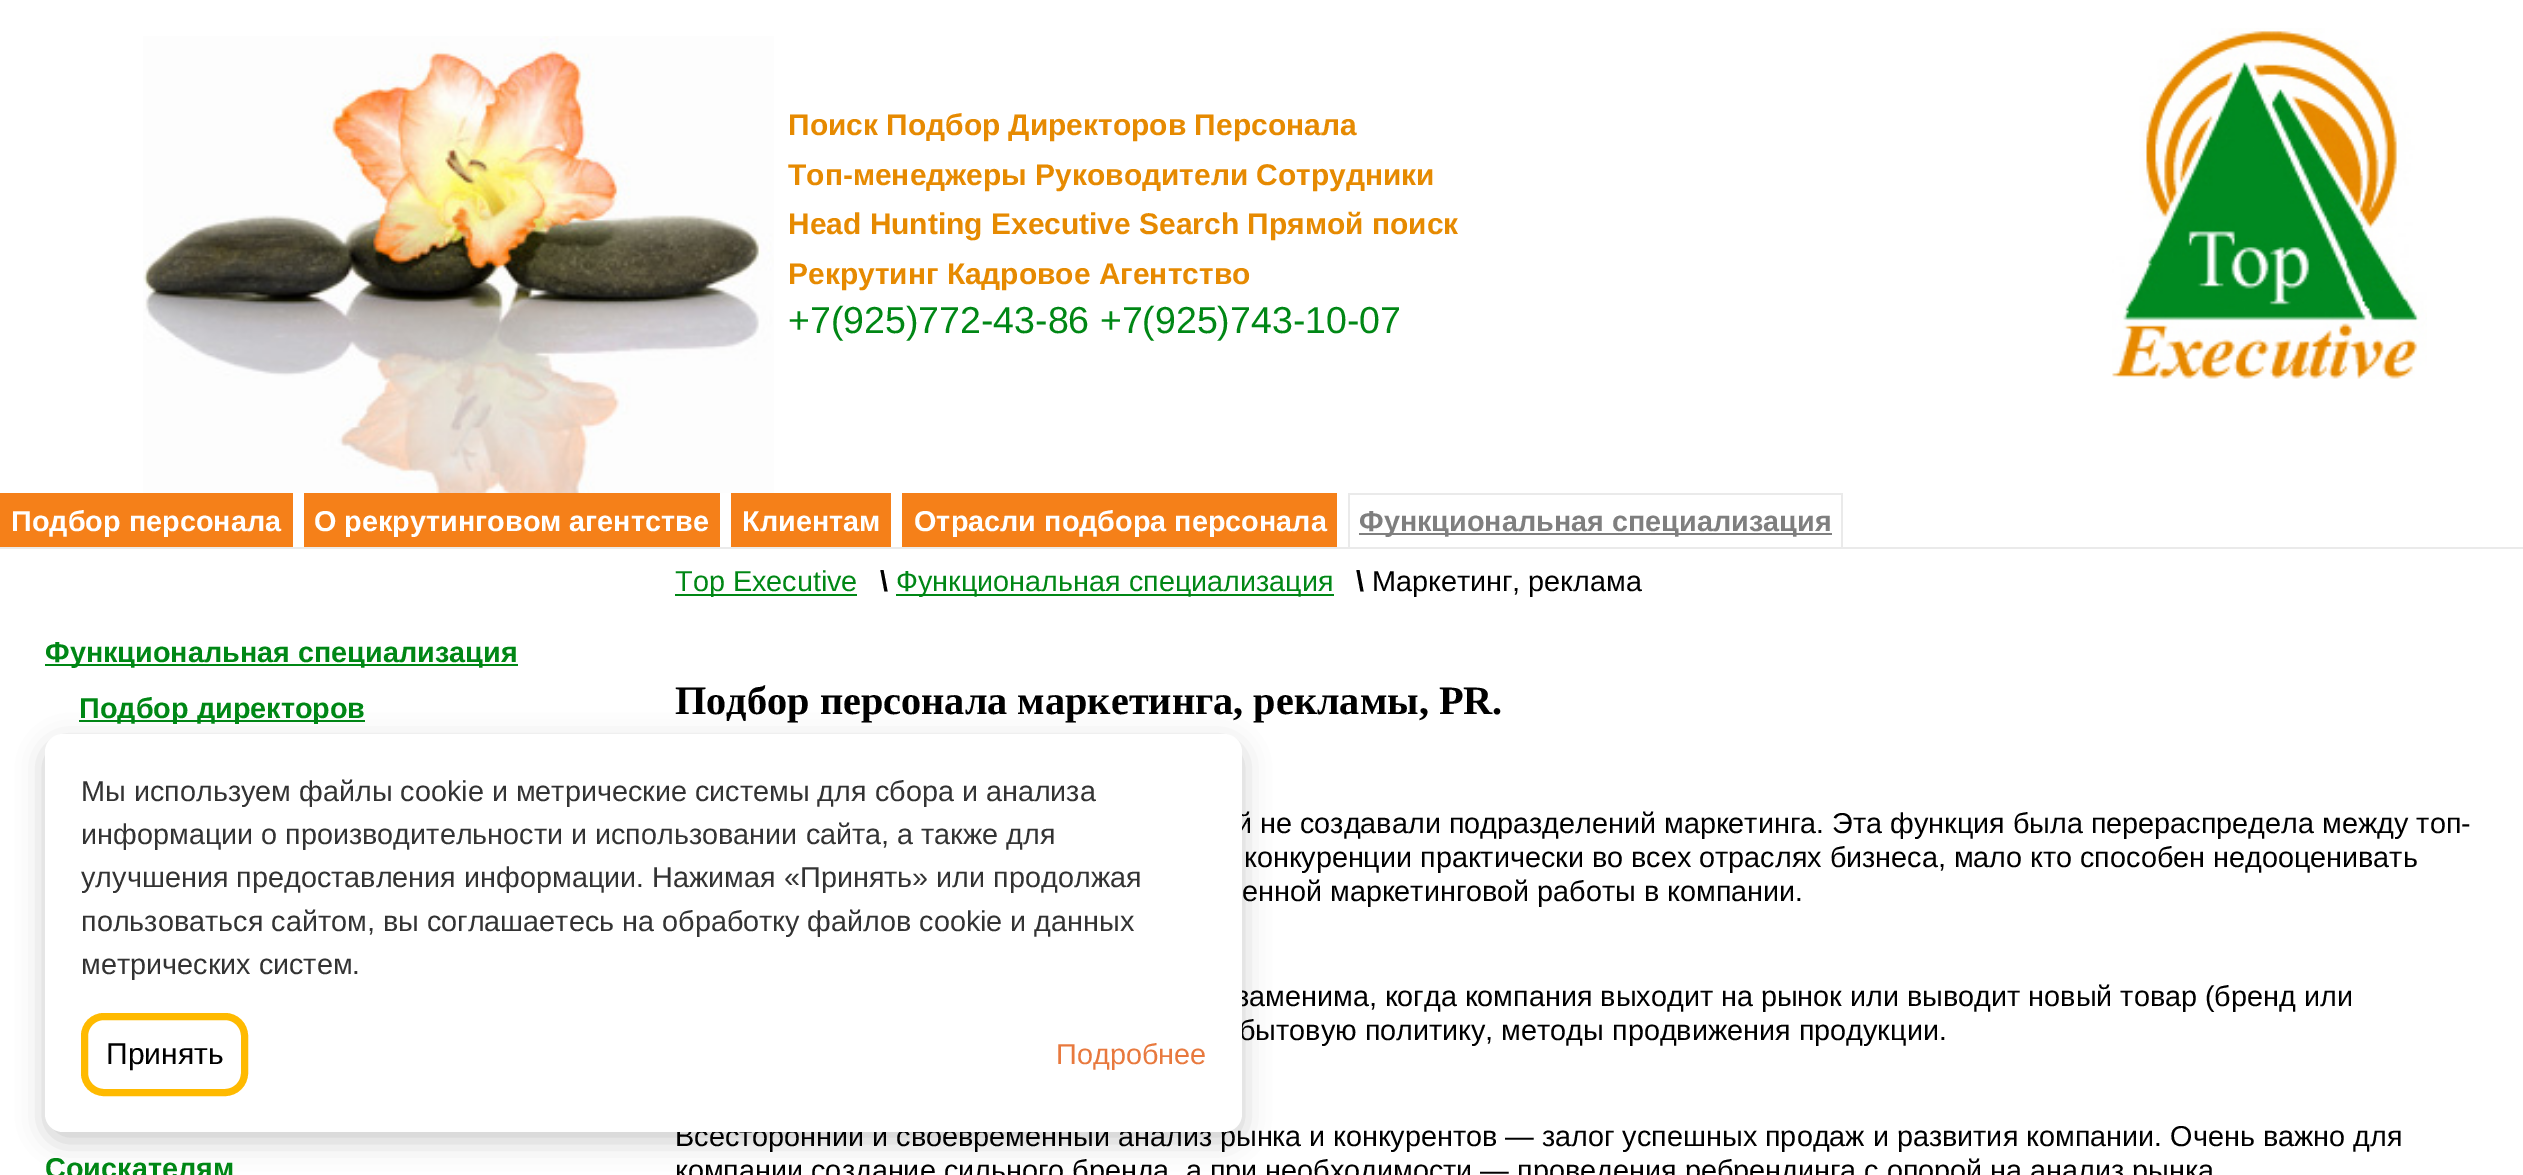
%!PS
<< /PageSize [2523 1175] /PageUsesTransparency true >> setpagedevice
/rgb { 3 { 255 div 3 1 roll } repeat setrgbcolor } def
/font { [ exch dup neg 0 0 3 -1 roll 0 0 ] selectfont } def
/text { moveto show } def
/alpha { dup .setfillconstantalpha .setstrokeconstantalpha } def
/roundrect { 5 dict begin { /r /h /w /y /x } { exch def } forall
  x r add y moveto x w add y 2 copy h add r arct x w add y h add x 1 index r arct
  x y h add x y r arct x y 2 copy exch w add exch r arct closepath end } def
/shadow { 12 dict begin { /a /b /q /h /w /y /x } { exch def } forall gsave /was 0 def
  9 -2 -9 { dup b mul 4 div /e exch def 1 sub .425 mul 2.718 exch exp 1 add a .99 .min exch div /now exch def
    1 1 now sub 1 was sub div sub alpha /was now def
    w h .min e 2 mul add 0 gt { x e sub y e sub w e 2 mul add h e 2 mul add
      q e add b .6 mul add w h .min 2 div e add .min 0 .max roundrect fill } if } for grestore end } def
/picture { 5 dict begin { /h /w /y /x /name } { exch def } forall
  gsave x y translate w h scale
  w h 8 [w 0 0 h 0 0] name (r) file false 3 colorimage grestore end } def
0 .pushpdf14devicefilter
0 1175 translate 1 -1 scale
4 setmiterlimit
255 255 255 rgb
0 0 2523 1175 rectfill
(img_01.rgb) 143 36 631 457 picture
(img_02.rgb) 2112 28 315 351 picture
234 234 234 rgb
0 547 2523 2 rectfill
245 128 25 rgb
0 493 293 54 rectfill
304 493 416 54 rectfill
731 493 160 54 rectfill
902 493 435 54 rectfill
234 234 234 rgb
1348 493 495 2 rectfill
1841 493 2 54 rectfill
1348 493 2 54 rectfill
127 127 127 rgb
1359 533 473 2 rectfill
0 135 21 rgb
45 664 473 2 rectfill
79 720 286 2 rectfill
675 594 182 2 rectfill
896 594 438 2 rectfill
0 0 0 rgb
45 743 1197 398 18 13.5 0.2 shadow
/LiberationSans-Bold 29.95 font
230 138 1 rgb
(Поиск Подбор Директоров Персонала) 788 135 text
(Топ-менеджеры Руководители Сотрудники) 788 185 text
(Head Hunting Executive Search Прямой поиск) 788 234 text
(Рекрутинг Кадровое Агентство) 788 284 text
/LiberationSans-Regular 37.5 font
0 135 21 rgb
(+7\(925\)772-43-86 +7\(925\)743-10-07) 788 333 text
/LiberationSans-Bold 28.8 font
255 255 255 rgb
(Подбор персонала) 11 531 text
(О рекрутинговом агентстве) 314 531 text
(Клиентам) 742 531 text
(Отрасли подбора персонала) 914 531 text
127 127 127 rgb
(Функциональная специализация) 1359 531 text
0 135 21 rgb
(Функциональная специализация) 45 662 text
(Подбор директоров) 79 718 text
(Соискателям) 45 1178 text
/LiberationSans-Regular 28.8 font
(Top Executive) 675 591 text
/LiberationSans-Bold 28.8 font
0 0 0 rgb
(\\) 880 591 text
/LiberationSans-Regular 28.8 font
0 135 21 rgb
(Функциональная специализация) 896 591 text
/LiberationSans-Bold 28.8 font
0 0 0 rgb
(\\) 1356 591 text
/LiberationSans-Regular 28.8 font
(Маркетинг, реклама) 1372 591 text
/LiberationSerif-Bold 40.3 font
(Подбор персонала маркетинга, рекламы, PR.) 675 714 text
/LiberationSans-Regular 28.8 font
(й не создавали подразделений маркетинга. Эта функция была перераспредела между топ-) 1236 833 text
(конкуренции практически во всех отраслях бизнеса, мало кто способен недооценивать) 1244 867 text
(енной маркетинговой работы в компании.) 1242 901 text
(заменима, когда компания выходит на рынок или выводит новый товар \(бренд или) 1236 1006 text
(бытовую политику, методы продвижения продукции.) 1239 1040 text
(Всесторонний и своевременный анализ рынка и конкурентов — залог успешных продаж и развития компании. Очень важно для) 675 1146 text
(компании создание сильного бренда, а при необходимости — проведения ребрендинга с опорой на анализ рынка) 675 1180 text
255 255 255 rgb
45 734 1197 398 18 roundrect fill
51 51 51 rgb
(Мы используем файлы cookie и метрические системы для сбора и анализа) 81 801 text
(информации о производительности и использовании сайта, а также для) 81 844 text
(улучшения предоставления информации. Нажимая «Принять» или продолжая) 81 887 text
(пользоваться сайтом, вы соглашаетесь на обработку файлов cookie и данных) 81 931 text
(метрических систем.) 81 974 text
255 186 0 rgb
7 setlinewidth
84.5 1016.5 160 76 19.5 roundrect stroke
/LiberationSans-Regular 30 font
0 0 0 rgb
(Принять) 106 1064 text
/LiberationSans-Regular 28.8 font
232 121 62 rgb
(Подробнее) 1056 1064 text
.poppdf14devicefilter showpage
